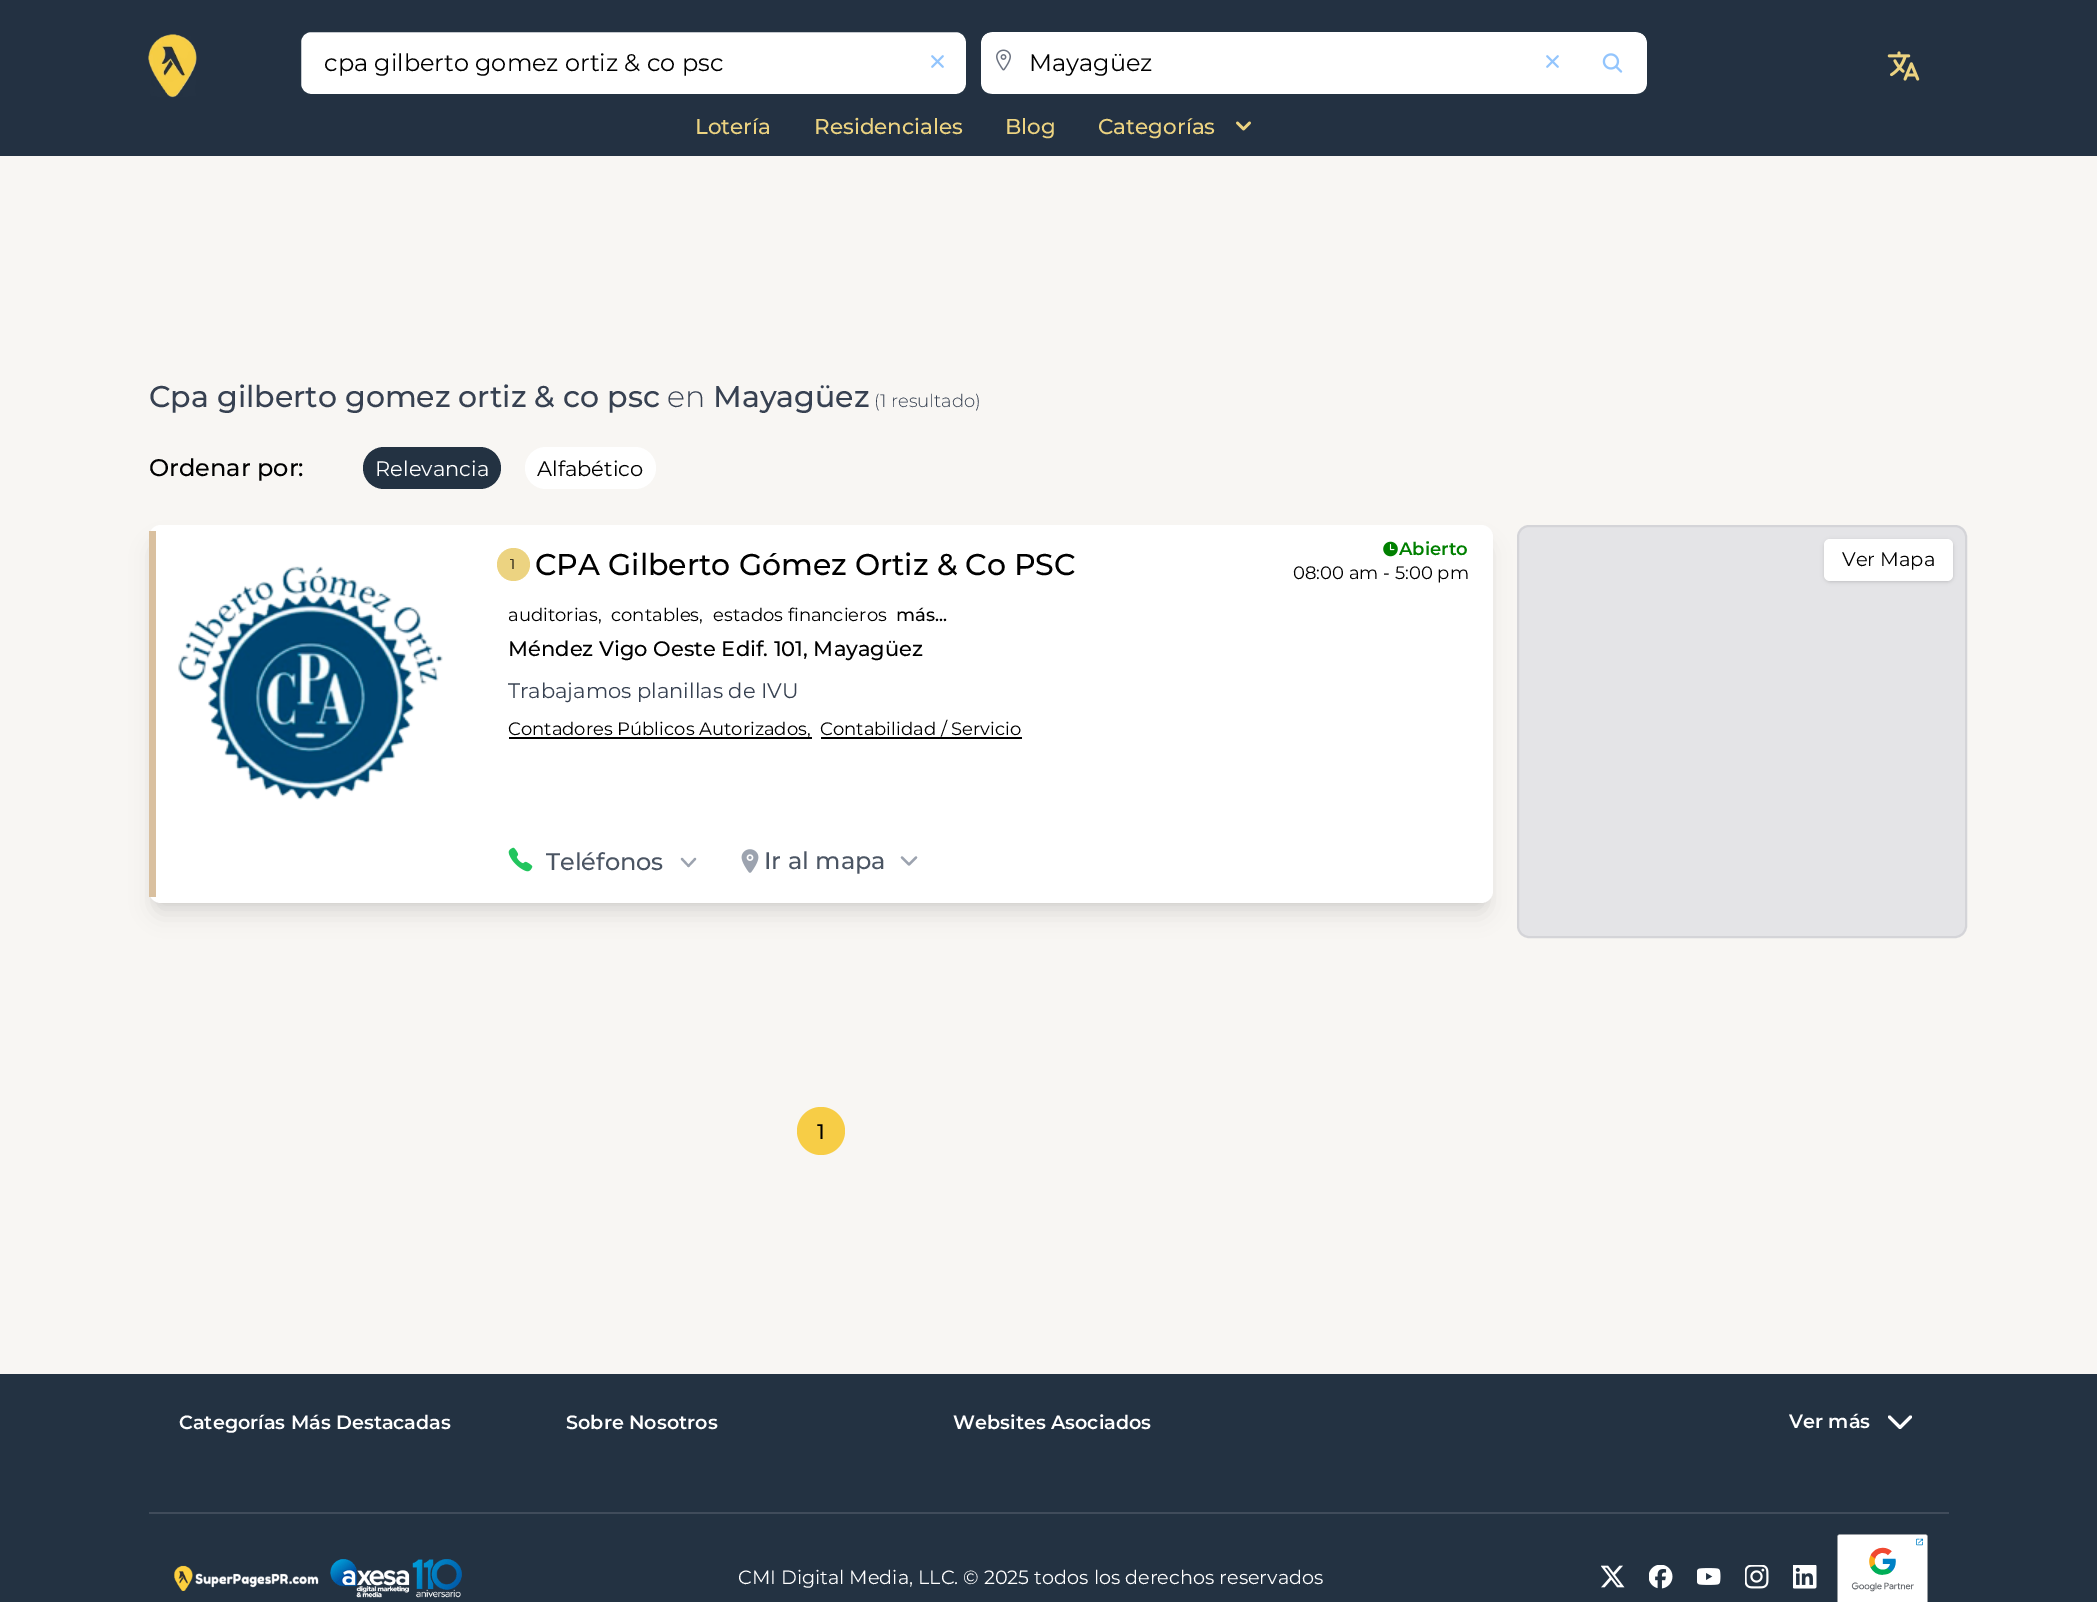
%!PS
<< /PageSize [2097 1602] /PageUsesTransparency true >> setpagedevice
/rgb { 3 { 255 div 3 1 roll } repeat setrgbcolor } def
/font { [ exch dup neg 0 0 3 -1 roll 0 0 ] selectfont } def
/text { moveto show } def
/alpha { dup .setfillconstantalpha .setstrokeconstantalpha } def
/circle { newpath 0 360 arc closepath } def
/roundrect { 5 dict begin { /r /h /w /y /x } { exch def } forall
  x r add y moveto x w add y 2 copy h add r arct x w add y h add x 1 index r arct
  x y h add x y r arct x y 2 copy exch w add exch r arct closepath end } def
/shadow { 12 dict begin { /a /b /q /h /w /y /x } { exch def } forall gsave /was 0 def
  9 -2 -9 { dup b mul 4 div /e exch def 1 sub .425 mul 2.718 exch exp 1 add a .99 .min exch div /now exch def
    1 1 now sub 1 was sub div sub alpha /was now def
    w h .min e 2 mul add 0 gt { x e sub y e sub w e 2 mul add h e 2 mul add
      q e add b .6 mul add w h .min 2 div e add .min 0 .max roundrect fill } if } for grestore end } def
/picture { 5 dict begin { /h /w /y /x /name } { exch def } forall
  gsave x y translate w h scale
  w h 8 [w 0 0 h 0 0] name (r) file false 3 colorimage grestore end } def
0 .pushpdf14devicefilter
0 1602 translate 1 -1 scale
4 setmiterlimit
248 246 243 rgb
0 0 2097 1602 rectfill
35 49 66 rgb
0 0 2097 156 rectfill
(img_01.rgb) 148 34 49 64 picture
255 255 255 rgb
300 31 667 64 11 roundrect gsave fill grestore
35 50 66 rgb
2 setlinewidth
stroke
(img_02.rgb) 931 55 13 13 picture
255 255 255 rgb
992 32 moveto 546 0 rlineto 0 63 rlineto -546 0 rlineto -6 0 -11 -5 -11 -11 rcurveto 0 -41 rlineto 0 -6 5 -11 11 -11 rcurveto closepath fill
35 50 66 rgb
992 30 moveto 546 0 rlineto 0 66 rlineto -546 0 rlineto -7 0 -12 -5 -12 -12 rcurveto 0 -42 rlineto 0 -7 5 -12 12 -12 rcurveto closepath 992 32 moveto 546 0 rlineto 0 62 rlineto -546 0 rlineto -6 0 -11 -4 -11 -10 rcurveto 0 -42 rlineto 0 -6 5 -10 11 -10 rcurveto closepath eofill
(img_03.rgb) 996 49 15 22 picture
255 255 255 rgb
1538 32 moveto 98 0 rlineto 6 0 11 5 11 11 rcurveto 0 41 rlineto 0 6 -5 11 -11 11 rcurveto -98 0 rlineto closepath fill
35 50 66 rgb
1538 30 moveto 98 0 rlineto 7 0 12 5 12 12 rcurveto 0 42 rlineto 0 7 -5 12 -12 12 rcurveto -98 0 rlineto closepath 1538 32 moveto 98 0 rlineto 6 0 11 4 11 10 rcurveto 0 42 rlineto 0 6 -5 10 -11 10 rcurveto -98 0 rlineto closepath eofill
(img_04.rgb) 1602 53 21 20 picture
(img_02.rgb) 1546 55 13 13 picture
(img_05.rgb) 1887 51 33 30 picture
(img_06.rgb) 1236 121 15 10 picture
363 447 138 42 21 roundrect fill
255 255 255 rgb
525 447 131 42 21 roundrect fill
0 0 0 rgb
155 537 1332 366 6 4.5 0.1 shadow
153 545 1335 369 8 11 0.1 shadow
255 255 255 rgb
149 525 1344 378 12 roundrect fill
217 192 159 rgb
149 531 7 366 rectfill
(img_07.rgb) 178 566 265 234 picture
236 211 129 rgb
513.5 564.5 16.5 circle fill
0 0 0 rgb
509 737 303 2 rectfill
821 737 201 2 rectfill
(img_08.rgb) 508 847 25 25 picture
156 163 175 rgb
2.2 setlinewidth
1 setlinecap
1 setlinejoin
682 859 moveto 6.5 7 rlineto 6.5 -7 rlineto stroke
(img_09.rgb) 741 849 18 24 picture
902 857.5 moveto 7 7 rlineto 7 -7 rlineto stroke
(img_10.rgb) 1383 541 15 16 picture
247 205 70 rgb
821 1131 24 circle fill
228 228 231 rgb
1518 526 448 411 11 roundrect gsave fill grestore
212 212 216 rgb
2 setlinewidth
0 setlinecap
0 setlinejoin
stroke
0 0 0 rgb
1826 542 126 39 5 1.5 0.1 shadow
1824 540 129 42 6 2 0.1 shadow
255 255 255 rgb
1824 539 129 42 6 roundrect fill
35 50 66 rgb
0 1374 2097 228 rectfill
255 255 255 rgb
3 setlinewidth
1 setlinecap
1 setlinejoin
1910.5 1417 moveto -10.5 10.5 rlineto -10.5 -10.5 rlineto stroke
64 76 91 rgb
149 1512 1800 2 rectfill
(img_11.rgb) 174 1559 288 39 picture
(img_12.rgb) 1601 1565 24 23 picture
(img_13.rgb) 1649 1565 24 24 picture
(img_14.rgb) 1697 1568 24 17 picture
(img_15.rgb) 1745 1565 24 24 picture
(img_16.rgb) 1793 1565 24 24 picture
(img_17.rgb) 1837 1534 91 68 picture
/Montserrat-Regular 24 font
0 0 0 rgb
(cpa gilberto gomez ortiz & co psc) 324 71 text
(Mayagüez) 1029 71 text
/Montserrat-Medium 21.5 font
236 211 129 rgb
(Lotería) 695 134 text
(Residenciales) 814 134 text
(Blog) 1005 134 text
(Categorías) 1098 134 text
/Montserrat-Medium 30 font
55 65 81 rgb
(Cpa gilberto gomez ortiz & co psc) 149 407 text
/Montserrat-Light 30 font
(en) 667 407 text
/Montserrat-Medium 30 font
(Mayagüez) 713 407 text
/Montserrat-Light 18 font
(\(1 resultado\)) 874 407 text
/Montserrat-Medium 24 font
0 0 0 rgb
(Ordenar por:) 149 476 text
/Montserrat-Regular 21 font
255 255 255 rgb
(Relevancia) 375 476 text
0 0 0 rgb
(Alfabético) 537 476 text
/Montserrat-Regular 14 font
(1) 510 569 text
/Montserrat-Medium 30 font
(CPA Gilberto Gómez Ortiz & Co PSC) 535 575 text
/Montserrat-Regular 18 font
(auditorias,) 508 621 text
(contables,) 611 621 text
(estados financieros) 713 621 text
/Montserrat-Medium 18 font
(más...) 896 621 text
/Montserrat-Medium 21 font
(Méndez Vigo Oeste Edif. 101, Mayagüez) 508 656 text
/Montserrat-Regular 21 font
55 65 81 rgb
(Trabajamos planillas de IVU) 508 698 text
/Montserrat-Regular 18 font
0 0 0 rgb
(Contadores Públicos Autorizados,) 508 735 text
(Contabilidad / Servicio) 820 735 text
/Montserrat-Medium 24 font
75 85 99 rgb
(Teléfonos) 546 870 text
(Ir al mapa) 764 869 text
/Montserrat-SemiBold 18 font
0 128 0 rgb
(Abierto) 1399 555 text
/Montserrat-Regular 18 font
0 0 0 rgb
(08:00 am - 5:00 pm) 1293 579 text
/Montserrat-Medium 21 font
(1) 817 1139 text
/Montserrat-Regular 19.5 font
(Ver Mapa) 1842 566 text
/Montserrat-SemiBold 19.2 font
255 255 255 rgb
(Categorías Más Destacadas) 179 1429 text
(Sobre Nosotros) 566 1429 text
(Websites Asociados) 953 1429 text
(Ver más) 1789 1428 text
/Montserrat-Regular 19.2 font
(CMI Digital Media, LLC. © 2025 todos los derechos reservados) 738 1584 text
.poppdf14devicefilter showpage
